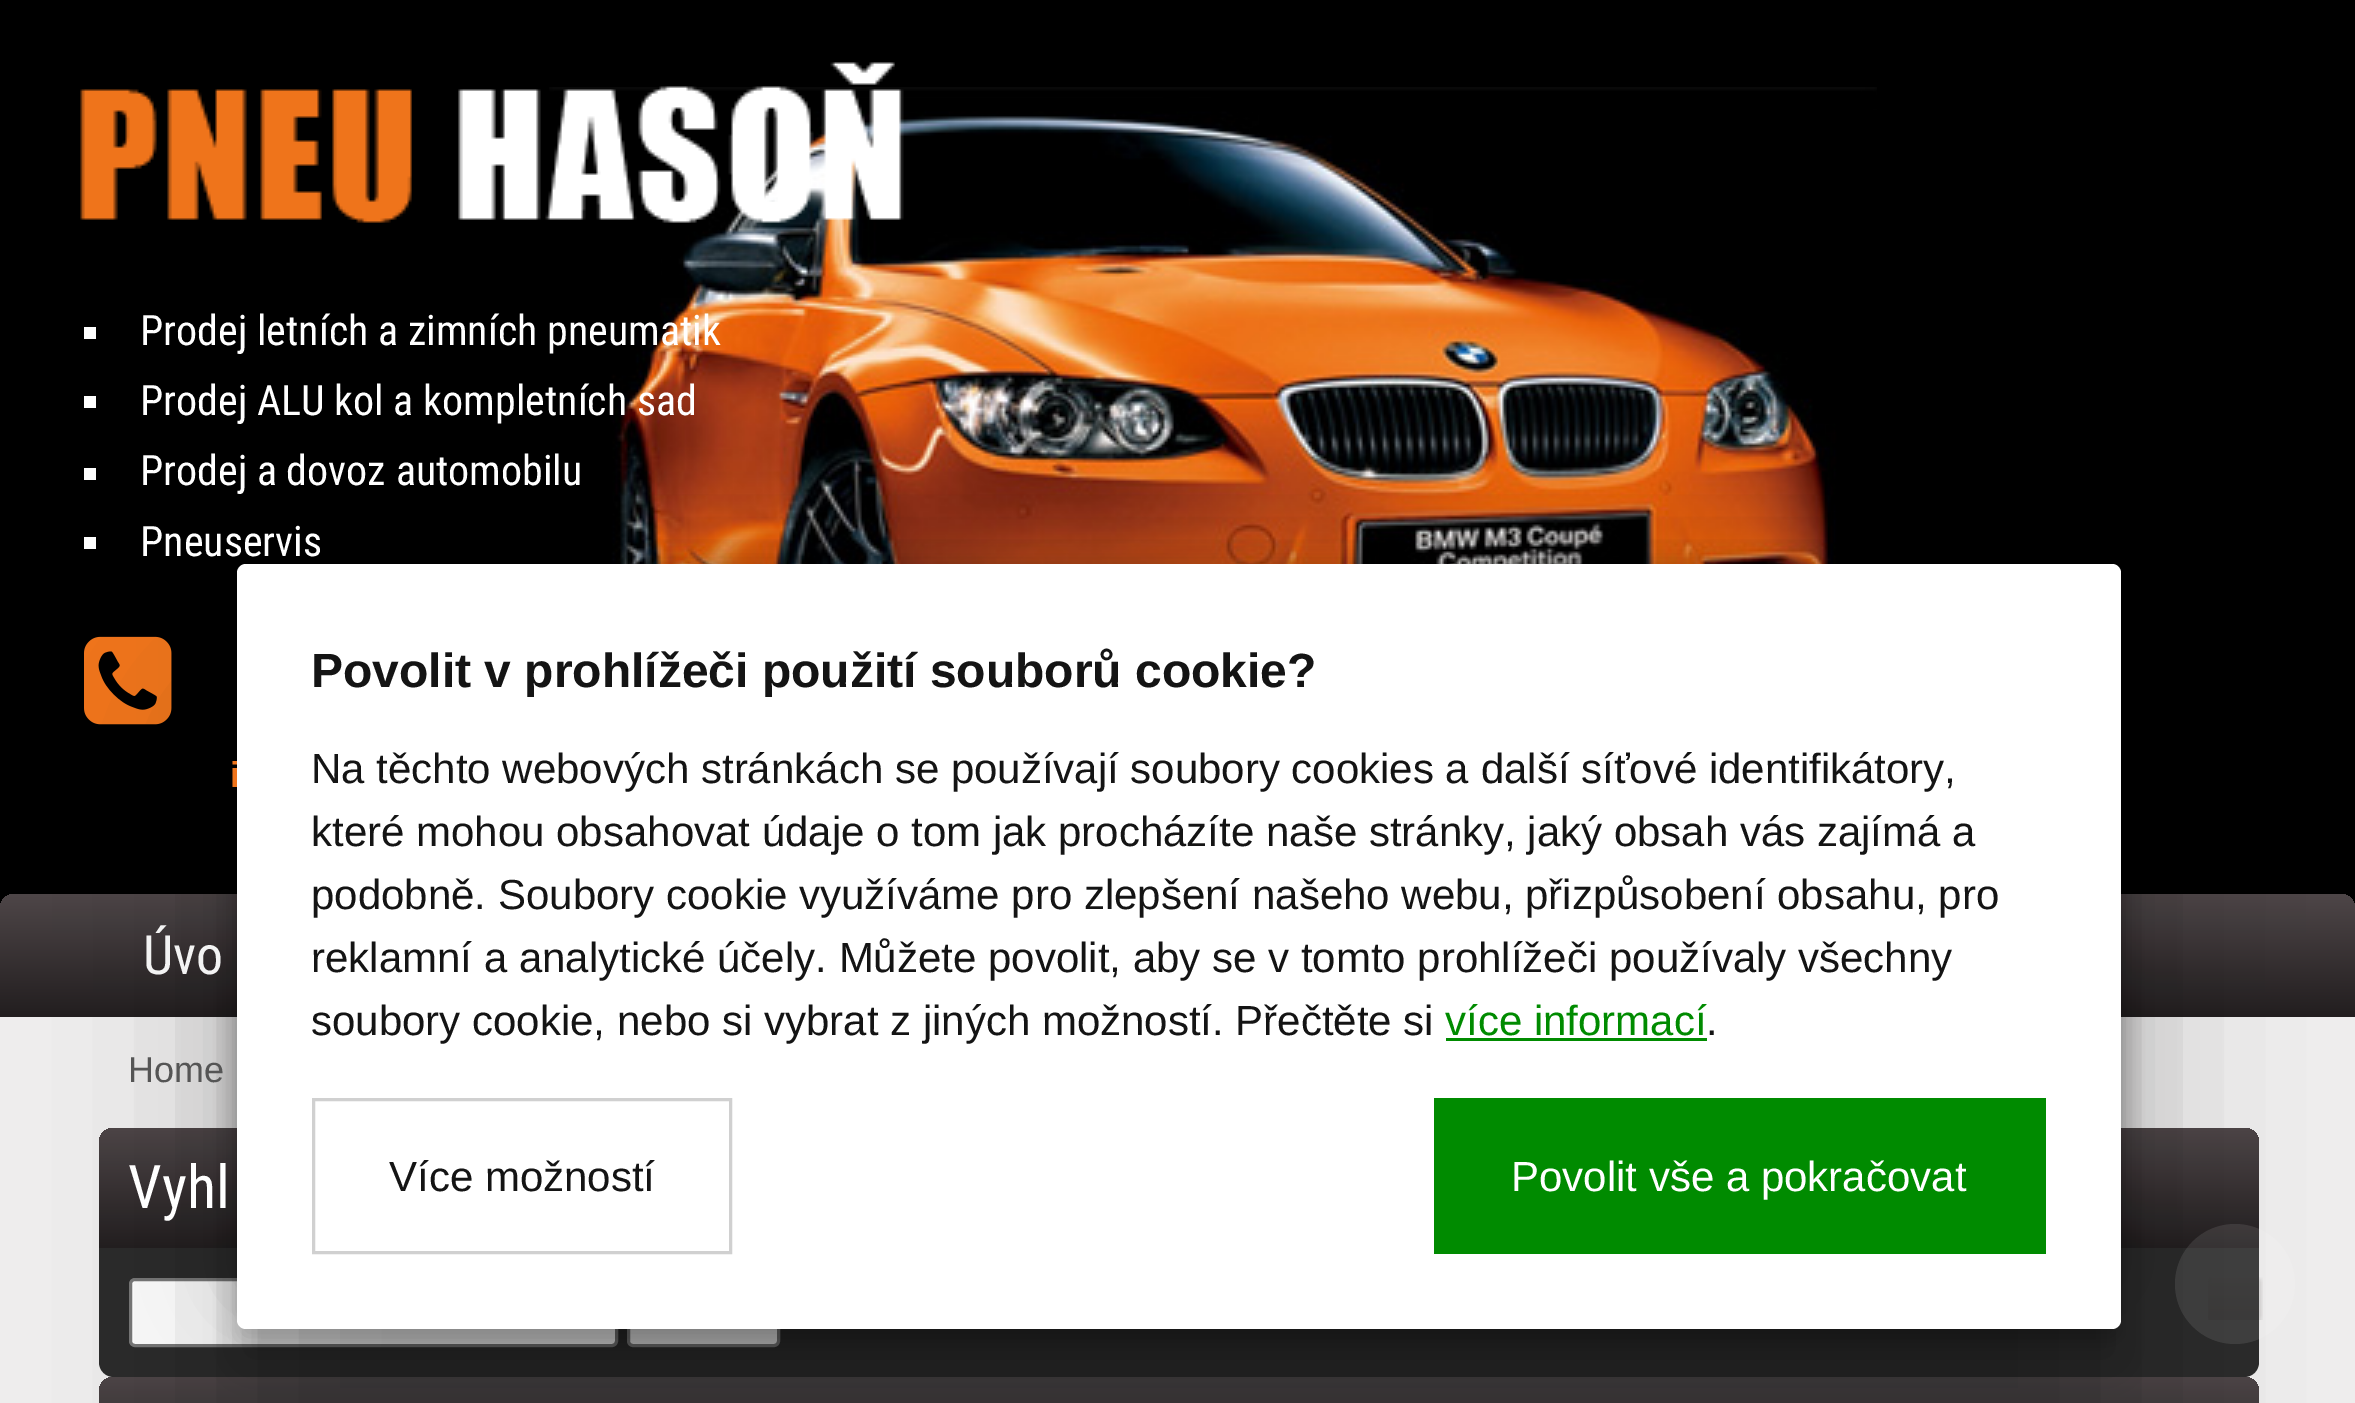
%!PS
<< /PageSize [2355 1403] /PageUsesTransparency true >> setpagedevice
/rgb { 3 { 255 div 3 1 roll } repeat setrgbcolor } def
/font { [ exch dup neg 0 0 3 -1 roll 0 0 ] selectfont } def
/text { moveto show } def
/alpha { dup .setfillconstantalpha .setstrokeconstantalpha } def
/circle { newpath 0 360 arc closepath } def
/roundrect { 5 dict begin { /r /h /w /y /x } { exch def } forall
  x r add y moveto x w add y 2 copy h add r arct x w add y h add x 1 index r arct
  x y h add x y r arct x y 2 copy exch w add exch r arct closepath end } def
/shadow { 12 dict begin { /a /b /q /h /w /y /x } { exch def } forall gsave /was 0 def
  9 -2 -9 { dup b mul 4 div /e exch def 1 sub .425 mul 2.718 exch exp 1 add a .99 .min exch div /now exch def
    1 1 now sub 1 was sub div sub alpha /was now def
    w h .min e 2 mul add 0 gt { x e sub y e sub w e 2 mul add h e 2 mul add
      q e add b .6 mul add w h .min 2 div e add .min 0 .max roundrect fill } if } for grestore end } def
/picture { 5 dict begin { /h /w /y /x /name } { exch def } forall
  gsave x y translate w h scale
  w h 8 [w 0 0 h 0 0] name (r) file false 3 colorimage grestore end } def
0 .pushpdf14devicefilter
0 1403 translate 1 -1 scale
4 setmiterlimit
0 0 0 rgb
0 0 2355 1403 rectfill
(img_01.rgb) 549 87 1328 477 picture
(img_02.rgb) 80 62 824 161 picture
255 255 255 rgb
84 327 12 12 rectfill
84 396 12 12 rectfill
84 468 12 12 rectfill
84 537 12 12 rectfill
(img_03.rgb) 84 636 88 89 picture
gsave 15 894 moveto 2325 0 rlineto 8.5 0 15 6.5 15 15 rcurveto 0 108 rlineto -2355 0 rlineto 0 -108 rlineto 0 -8.5 6.5 -15 15 -15 rcurveto closepath clip newpath
<< /ShadingType 2 /ColorSpace /DeviceRGB /Coords [1178 894 1178 1017] /Extend [true true] /Function << /FunctionType 2 /Domain [0 1] /C0 [0.306 0.275 0.282] /C1 [0.133 0.118 0.122] /N 1 >> >> shfill grestore
238 237 237 rgb
0 1017 2355 386 rectfill
gsave 114 1128 moveto 2130 0 rlineto 8.5 0 15 6.5 15 15 rcurveto 0 105 rlineto -2160 0 rlineto 0 -105 rlineto 0 -8.5 6.5 -15 15 -15 rcurveto closepath clip newpath
<< /ShadingType 2 /ColorSpace /DeviceRGB /Coords [1179 1128 1179 1248] /Extend [true true] /Function << /FunctionType 2 /Domain [0 1] /C0 [0.306 0.275 0.282] /C1 [0.133 0.118 0.122] /N 1 >> >> shfill grestore
42 42 42 rgb
99 1248 moveto 2160 0 rlineto 0 114 rlineto 0 8.5 -6.5 15 -15 15 rcurveto -2130 0 rlineto -8.5 0 -15 -6.5 -15 -15 rcurveto closepath fill
255 255 255 rgb
130.5 1279.5 486 66 4.5 roundrect gsave fill grestore
118 118 118 rgb
3 setlinewidth
stroke
239 239 239 rgb
628.5 1279.5 150 66 4.5 roundrect gsave fill grestore
118 118 118 rgb
stroke
gsave 114 1377 moveto 2130 0 rlineto 8.5 0 15 6.5 15 15 rcurveto 0 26 rlineto -2160 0 rlineto 0 -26 rlineto 0 -8.5 6.5 -15 15 -15 rcurveto closepath clip newpath
<< /ShadingType 2 /ColorSpace /DeviceRGB /Coords [1179 1377 1179 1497] /Extend [true true] /Function << /FunctionType 2 /Domain [0 1] /C0 [0.306 0.275 0.282] /C1 [0.133 0.118 0.122] /N 1 >> >> shfill grestore
0.1 alpha
255 255 255 rgb
2235 1284 60 circle fill
1 alpha
(img_04.rgb) 2208 1277 55 43 picture
0 0 0 rgb
237 555 1884 765 9 7.5 0.09 shadow
237 600 1884 765 9 19.5 0.17 shadow
237 576 1884 765 9 9 0.12 shadow
237 528 1884 765 9 45 0.12 shadow
237 726 1884 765 9 82.5 0.25 shadow
/RobotoCondensed-Regular 42 font
255 255 255 rgb
(Prodej letních a zimních pneumatik) 140 345 text
(Prodej ALU kol a kompletních sad) 140 415 text
(Prodej a dovoz automobilu) 140 485 text
(Pneuservis) 140 556 text
/LiberationSans-Bold 36 font
239 116 27 rgb
(i) 230 787 text
/RobotoCondensed-Regular 54 font
243 243 243 rgb
(Úvo) 143 974 text
/LiberationSans-Regular 36 font
85 85 85 rgb
(Home) 128 1082 text
/RobotoCondensed-Regular 60 font
255 255 255 rgb
(Vyhl) 128 1208 text
237 564 1884 765 9 roundrect fill
/LiberationSans-Bold 48 font
20 20 20 rgb
(Povolit v prohlížeči použití souborů cookie?) 311 687 text
/LiberationSans-Regular 42 font
(Na těchto webových stránkách se používají soubory cookies a další síťové identifikátory,) 311 783 text
(které mohou obsahovat údaje o tom jak procházíte naše stránky, jaký obsah vás zajímá a) 311 846 text
(podobně. Soubory cookie využíváme pro zlepšení našeho webu, přizpůsobení obsahu, pro) 311 909 text
(reklamní a analytické účely. Můžete povolit, aby se v tomto prohlížeči používaly všechny) 311 972 text
(soubory cookie, nebo si vybrat z jiných možností. Přečtěte si) 311 1035 text
0 139 0 rgb
(více informací) 1445 1035 text
1446 1038 261 3 rectfill
20 20 20 rgb
(.) 1706 1035 text
208 208 208 rgb
313.5 1099.5 417 153 rectstroke
20 20 20 rgb
(Více možností) 389 1191 text
0 139 0 rgb
1434 1098 612 156 rectfill
255 255 255 rgb
(Povolit vše a pokračovat) 1511 1191 text
.poppdf14devicefilter showpage
